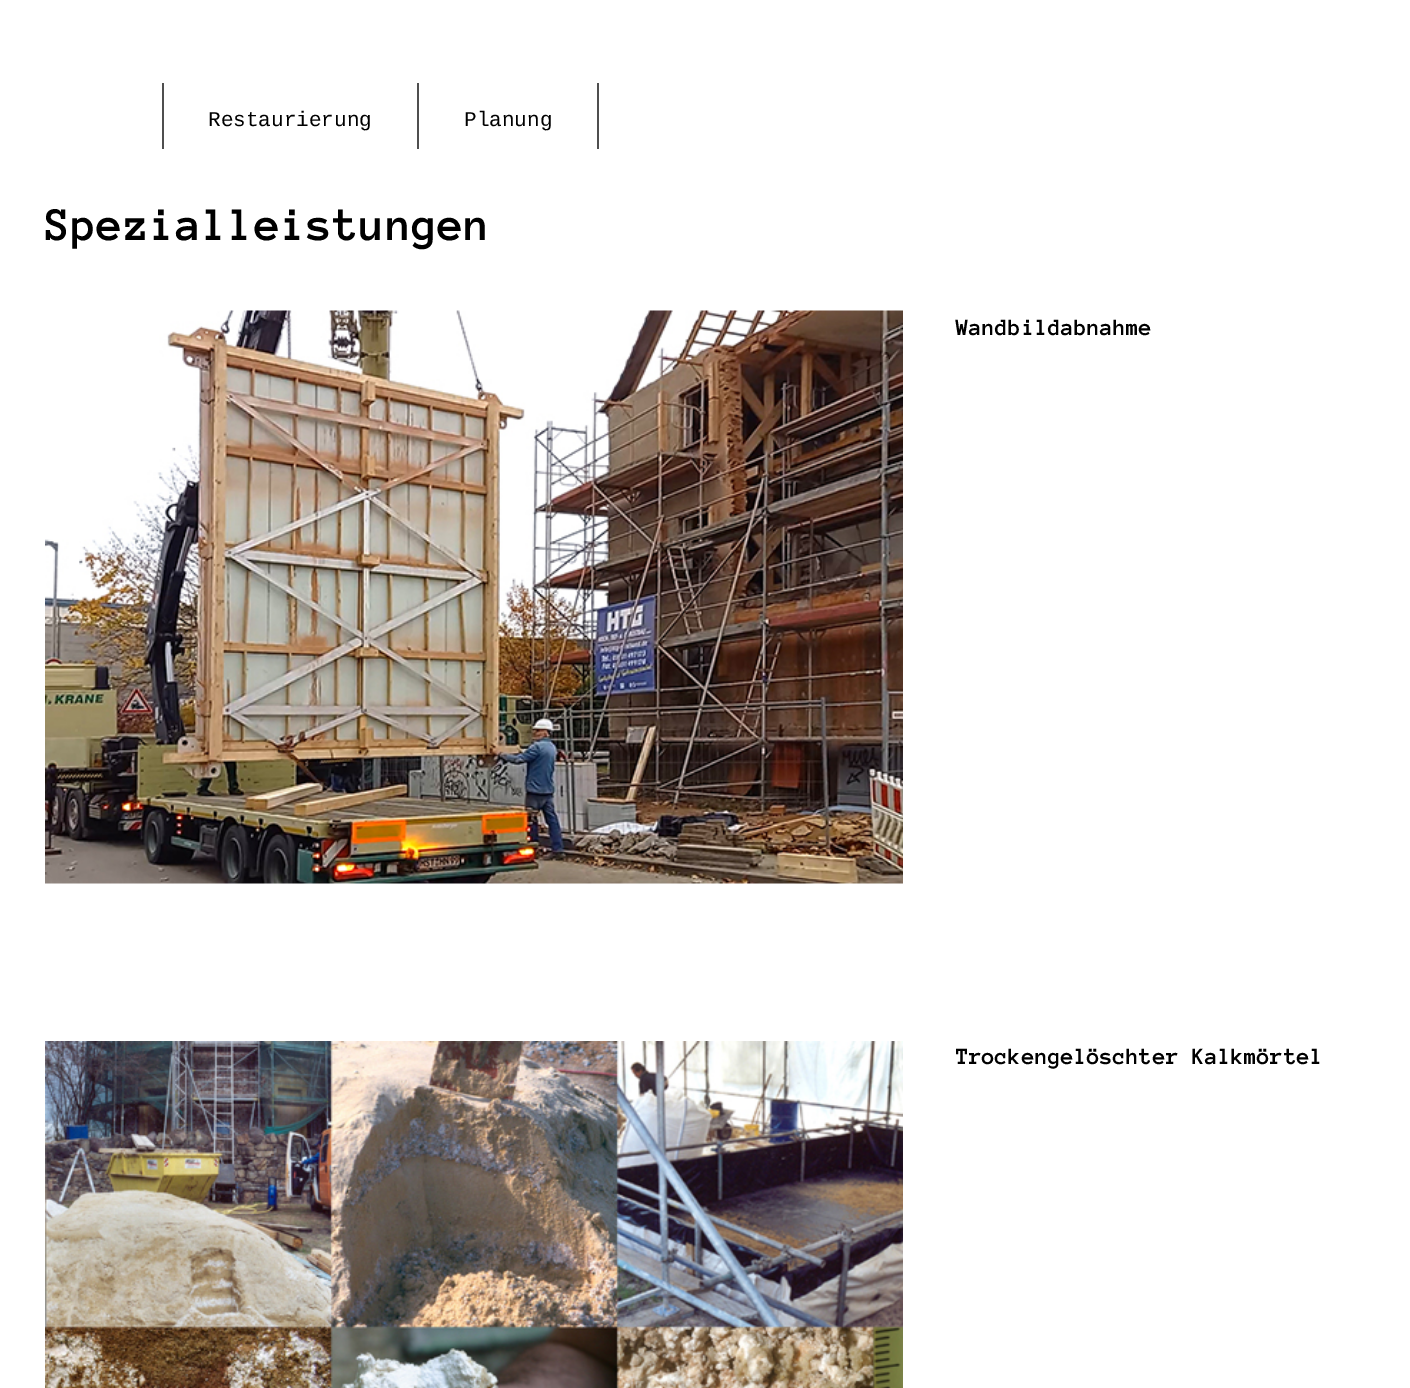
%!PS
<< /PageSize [1410 1388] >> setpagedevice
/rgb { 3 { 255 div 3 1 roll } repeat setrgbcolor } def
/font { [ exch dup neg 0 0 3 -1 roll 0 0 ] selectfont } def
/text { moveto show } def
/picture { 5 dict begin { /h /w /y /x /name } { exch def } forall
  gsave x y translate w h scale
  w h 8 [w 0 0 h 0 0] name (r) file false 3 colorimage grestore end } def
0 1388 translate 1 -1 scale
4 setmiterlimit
255 255 255 rgb
0 0 1410 1388 rectfill
79 79 79 rgb
162 83 2 66 rectfill
417 83 2 66 rectfill
597 83 2 66 rectfill
(img_01.rgb) 45 310 858 574 picture
(img_02.rgb) 45 1041 858 347 picture
/LiberationMono-Regular 21 font
0 0 0 rgb
(Restaurierung) 208 126 text
(Planung) 464 126 text
/AnonymousPro-Bold 48 font
(Spezialleistungen) 45 240 text
/AnonymousPro-Bold 24 font
(Wandbildabnahme) 956 335 text
(Trockengelöschter Kalkmörtel) 956 1064 text
showpage
